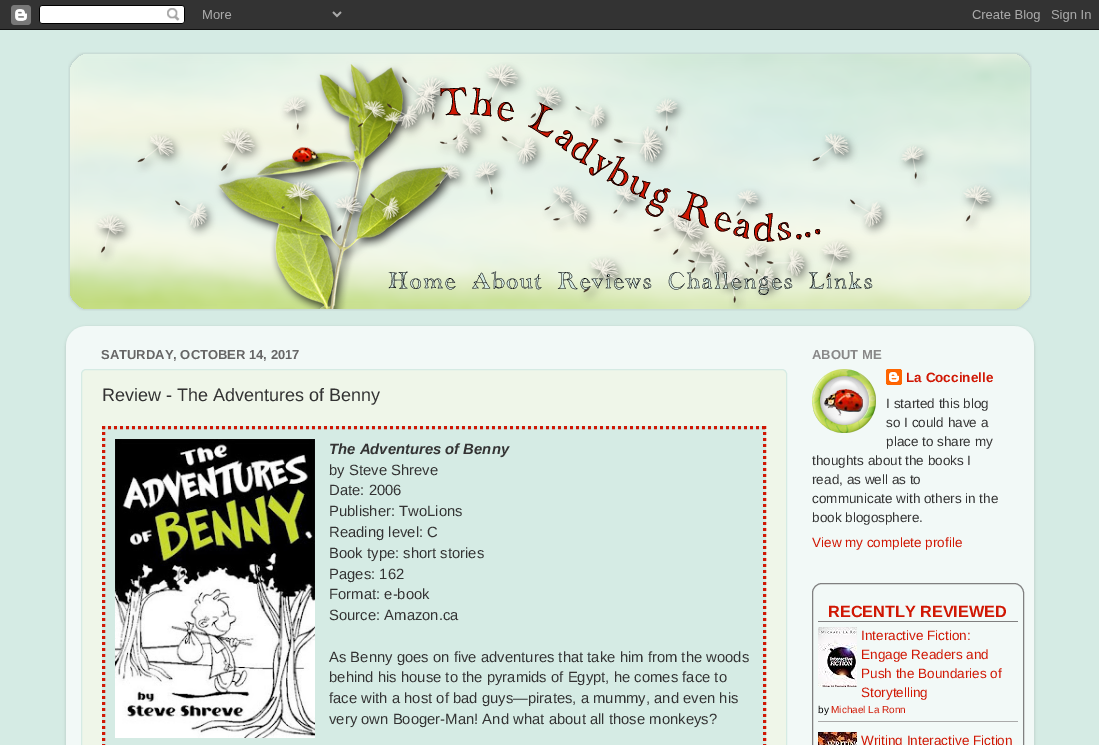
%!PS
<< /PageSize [1099 745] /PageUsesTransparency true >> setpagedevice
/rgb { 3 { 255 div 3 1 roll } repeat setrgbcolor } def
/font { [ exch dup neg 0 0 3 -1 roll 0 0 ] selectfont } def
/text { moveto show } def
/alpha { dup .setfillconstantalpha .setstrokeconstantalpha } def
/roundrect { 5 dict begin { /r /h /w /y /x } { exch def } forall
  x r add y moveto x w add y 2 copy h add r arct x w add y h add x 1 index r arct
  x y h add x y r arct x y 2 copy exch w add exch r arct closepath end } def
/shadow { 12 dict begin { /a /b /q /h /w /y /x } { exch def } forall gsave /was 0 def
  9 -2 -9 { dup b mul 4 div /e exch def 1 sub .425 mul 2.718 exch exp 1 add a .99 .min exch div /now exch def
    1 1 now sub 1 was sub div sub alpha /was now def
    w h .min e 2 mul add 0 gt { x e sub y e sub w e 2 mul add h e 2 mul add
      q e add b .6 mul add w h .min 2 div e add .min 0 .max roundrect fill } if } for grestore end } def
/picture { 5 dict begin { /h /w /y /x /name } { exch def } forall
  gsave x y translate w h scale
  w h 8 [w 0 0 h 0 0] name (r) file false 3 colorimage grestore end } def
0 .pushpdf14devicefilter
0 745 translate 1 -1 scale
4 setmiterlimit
213 235 228 rgb
0 0 1099 745 rectfill
(img_01.rgb) 0 0 1099 30 picture
(img_02.rgb) 68 52 964 259 picture
gsave
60 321 moveto 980 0 rlineto 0 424 rlineto -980 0 rlineto closepath 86 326 moveto 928 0 rlineto 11 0 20 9 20 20 rcurveto 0 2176 rlineto -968 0 rlineto 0 -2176 rlineto 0 -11 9 -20 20 -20 rcurveto closepath eoclip newpath
0 0 0 rgb
66 327 968 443 20 1.5 0.15 shadow
grestore
(img_03.rgb) 66 326 968 419 picture
239 246 233 rgb
81.5 369.5 705 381 4.5 roundrect gsave fill grestore
213 235 228 rgb
stroke
102 426 664 319 rectfill
208 23 3 rgb
3 setlinewidth
[3 3] 0 setdash
102 427.5 moveto 664 0 rlineto stroke
764.5 426 moveto 0 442 rlineto stroke
103.5 426 moveto 0 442 rlineto stroke
(img_04.rgb) 115 439 200 299 picture
(img_05.rgb) 812 369 64 64 picture
(img_06.rgb) 886 369 16 16 picture
128 128 128 rgb
1 setlinewidth
[] 0 setdash
812.5 583.5 211 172 9.5 roundrect stroke
818 621 200 1 rectfill
170 170 170 rgb
818 721 200 1 rectfill
(img_07.rgb) 818 627 39 60 picture
(img_08.rgb) 818 732 39 13 picture
/LiberationSans-Bold 13 font
102 102 102 rgb
(SATURDAY, OCTOBER 14, 2017) 101 359 text
/LiberationSans-Regular 18 font
51 51 51 rgb
(Review - The Adventures of Benny) 102 401 text
/LiberationSans-BoldItalic 14.85 font
(The Adventures of Benny) 329 454 text
/LiberationSans-Regular 14.85 font
(by Steve Shreve) 329 475 text
(Date: 2006) 329 495 text
(Publisher: TwoLions) 329 516 text
(Reading level: C) 329 537 text
(Book type: short stories) 329 558 text
(Pages: 162) 329 579 text
(Format: e-book) 329 599 text
(Source: Amazon.ca) 329 620 text
(As Benny goes on five adventures that take him from the woods) 329 662 text
(behind his house to the pyramids of Egypt, he comes face to) 329 682 text
(face with a host of bad guys—pirates, a mummy, and even his) 329 703 text
(very own Booger-Man! And what about all those monkeys?) 329 724 text
/LiberationSans-Bold 13 font
136 136 136 rgb
(ABOUT ME) 812 359 text
/LiberationSans-Bold 13.5 font
208 23 3 rgb
(La Coccinelle) 906 382 text
/LiberationSans-Regular 13.5 font
51 51 51 rgb
(I started this blog) 886 408 text
(so I could have a) 886 427 text
(place to share my) 886 446 text
(thoughts about the books I) 812 465 text
(read, as well as to) 812 484 text
(communicate with others in the) 812 503 text
(book blogosphere.) 812 522 text
208 23 3 rgb
(View my complete profile) 812 547 text
/LiberationSans-Bold 16.25 font
(RECENTLY REVIEWED) 828 617 text
/LiberationSans-Regular 13.5 font
(Interactive Fiction:) 861 640 text
(Engage Readers and) 861 659 text
(Push the Boundaries of) 861 678 text
(Storytelling) 861 697 text
/LiberationSans-Regular 10 font
0 0 0 rgb
(by) 818 713 text
208 23 3 rgb
(Michael La Ronn) 831 713 text
/LiberationSans-Regular 13.5 font
(Writing Interactive Fiction) 861 745 text
.poppdf14devicefilter showpage
